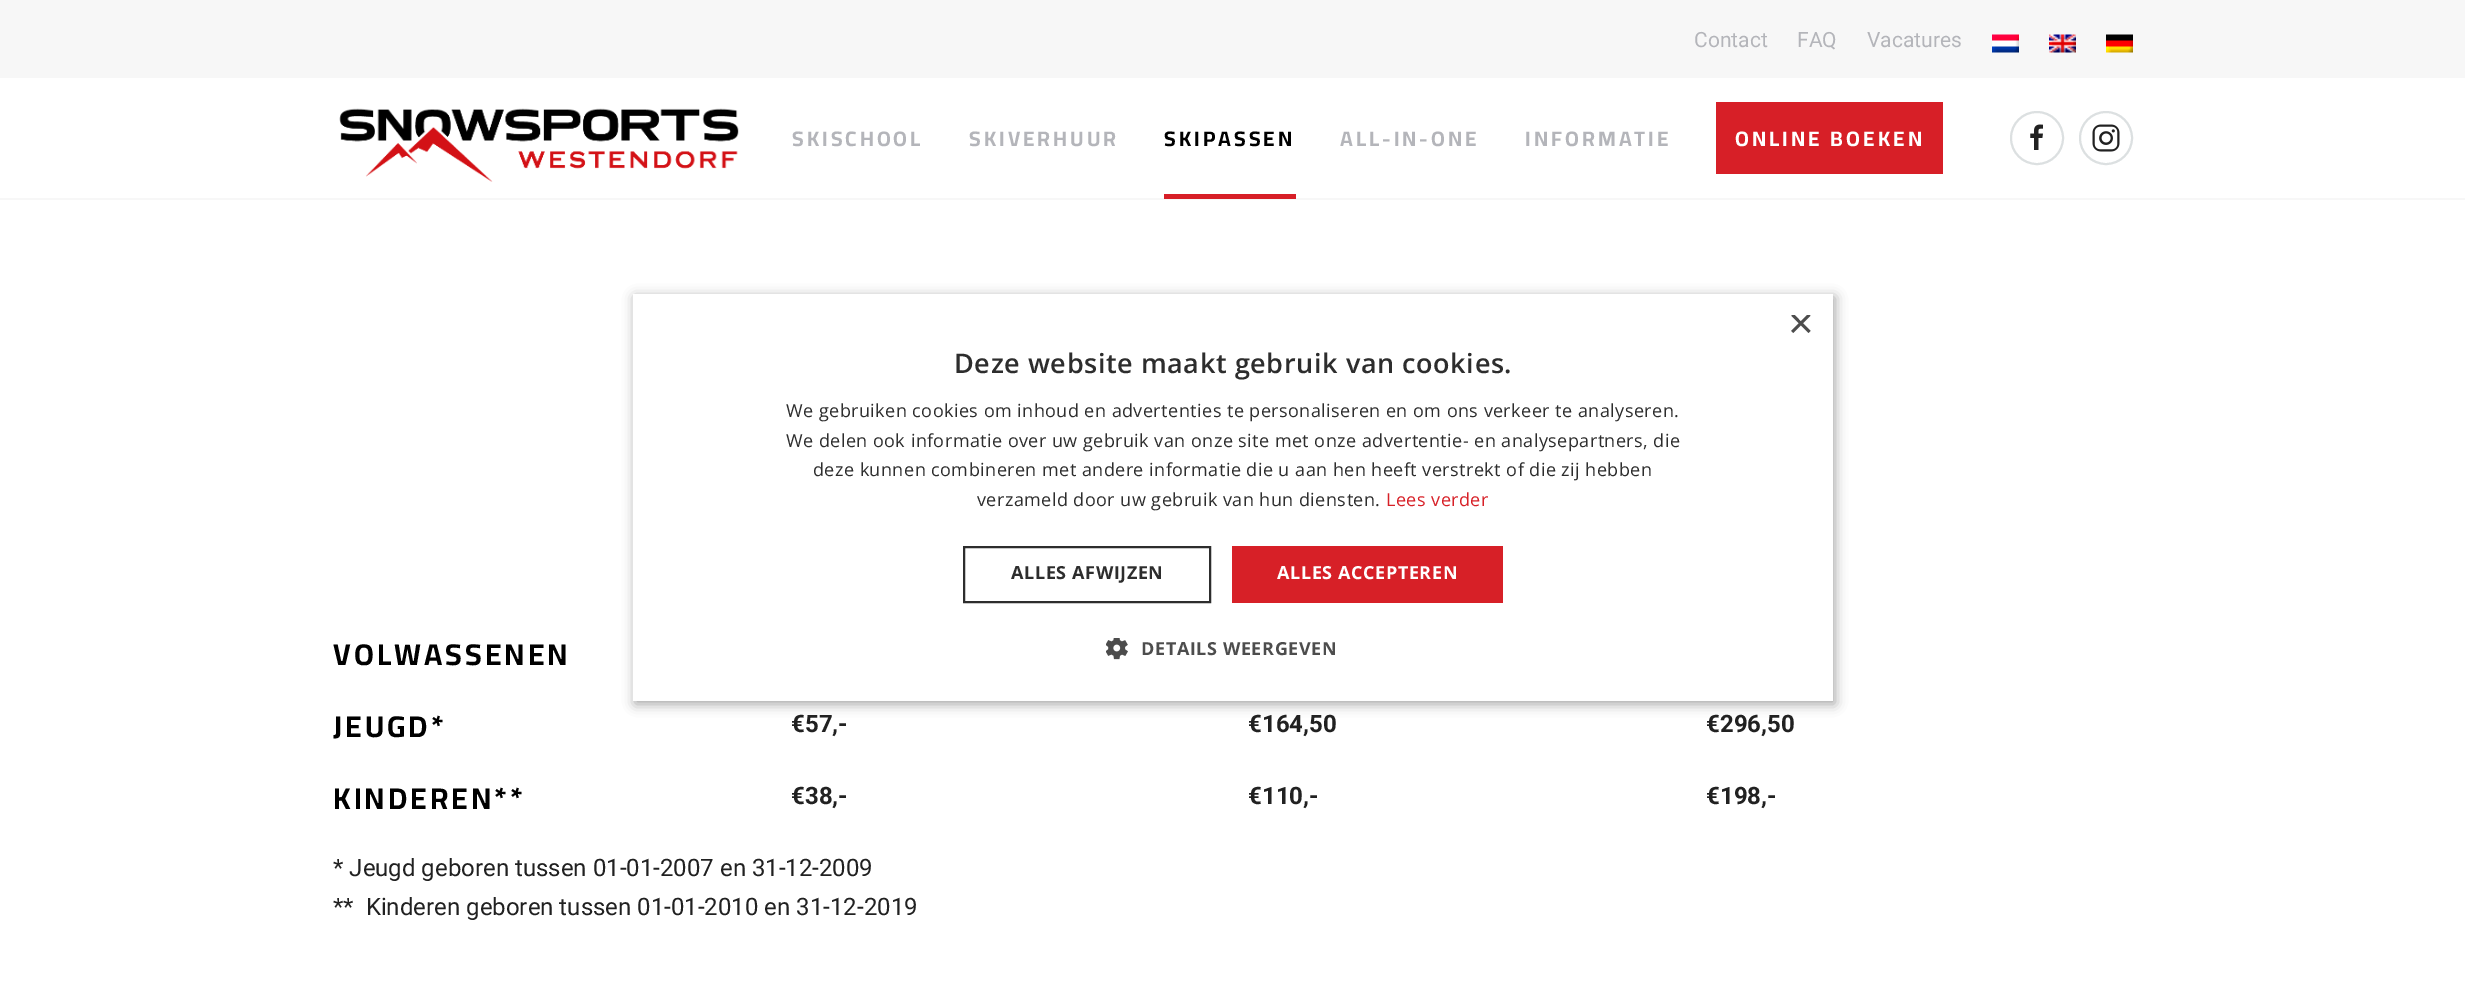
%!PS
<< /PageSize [2465 993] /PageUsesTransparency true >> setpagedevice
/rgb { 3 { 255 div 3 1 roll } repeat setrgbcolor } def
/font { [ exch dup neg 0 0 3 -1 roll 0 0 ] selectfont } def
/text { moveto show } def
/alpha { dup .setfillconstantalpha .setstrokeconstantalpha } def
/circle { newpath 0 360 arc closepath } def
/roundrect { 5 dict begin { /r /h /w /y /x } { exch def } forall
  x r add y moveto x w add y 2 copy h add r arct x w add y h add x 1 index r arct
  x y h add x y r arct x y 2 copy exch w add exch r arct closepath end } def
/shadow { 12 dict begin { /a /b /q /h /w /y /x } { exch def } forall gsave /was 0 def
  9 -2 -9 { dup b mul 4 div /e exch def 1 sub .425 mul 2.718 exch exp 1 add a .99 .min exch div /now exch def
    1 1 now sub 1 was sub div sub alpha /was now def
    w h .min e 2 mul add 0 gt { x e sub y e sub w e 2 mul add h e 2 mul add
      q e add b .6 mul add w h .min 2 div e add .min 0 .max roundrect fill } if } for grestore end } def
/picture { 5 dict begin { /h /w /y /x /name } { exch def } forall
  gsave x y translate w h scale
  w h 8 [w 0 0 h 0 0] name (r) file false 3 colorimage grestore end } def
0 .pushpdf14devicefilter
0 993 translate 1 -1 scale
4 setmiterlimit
255 255 255 rgb
0 0 2465 993 rectfill
247 247 247 rgb
0 0 2465 78 rectfill
(img_01.rgb) 1992 34 27 19 picture
(img_02.rgb) 2049 34 27 19 picture
(img_03.rgb) 2106 34 27 19 picture
0 198 2465 2 rectfill
(img_04.rgb) 339 108 400 74 picture
215 31 39 rgb
1164 194 132 5 rectfill
1716 102 227 72 rectfill
220 224 225 rgb
2 setlinewidth
2037 138 26 circle stroke
(img_05.rgb) 2030 124 13 26 picture
2106 138 26 circle stroke
(img_06.rgb) 2092 124 28 28 picture
0 0 0 rgb
635 297 1200 407 0 6 0.35 shadow
255 255 255 rgb
633 294 1200 407 rectfill
45 45 45 rgb
964 547 246 55 rectstroke
215 32 39 rgb
1232 546 271 57 rectfill
(img_07.rgb) 1106 638 22 22 picture
/Roboto-Regular 21 font
180 181 186 rgb
(Contact) 1694 47 text
(FAQ) 1797 47 text
(Vacatures) 1867 47 text
/Cairo-Bold 21 font
792 146 moveto 3 0 (SKISCHOOL) ashow
969 146 moveto 3 0 (SKIVERHUUR) ashow
0 0 0 rgb
1164 146 moveto 3 0 (SKIPASSEN) ashow
180 181 186 rgb
1340 146 moveto 3 0 (ALL-IN-ONE) ashow
1525 146 moveto 3 0 (INFORMATIE) ashow
255 255 255 rgb
1735 146 moveto 3 0 (ONLINE BOEKEN) ashow
/Cairo-Bold 30 font
0 0 0 rgb
333 665 moveto 3 0 (VOLWASSENEN) ashow
333 737 moveto 3 0 (JEUGD*) ashow
/Roboto-Bold 24 font
33 33 33 rgb
(€57,-) 791 732 text
(€164,50) 1248 732 text
(€296,50) 1706 732 text
/Cairo-Bold 30 font
0 0 0 rgb
333 809 moveto 3 0 (KINDEREN**) ashow
/Roboto-Bold 24 font
33 33 33 rgb
(€38,-) 791 804 text
(€110,-) 1248 804 text
(€198,-) 1706 804 text
/Roboto-Regular 24 font
(* Jeugd geboren tussen 01-01-2007 en 31-12-2009) 333 876 text
(**  Kinderen geboren tussen 01-01-2010 en 31-12-2019) 333 915 text
gsave
1788 315 23 23 rectclip
/LiberationSans-Regular 44 font
77 77 77 rgb
(×) 1788 338 text
grestore
/OpenSans-SemiBold 27 font
45 45 45 rgb
954 373 moveto 0.6 0 (Deze website maakt gebruik van cookies.) ashow
/OpenSans-Regular 18 font
786 417 moveto 0.45 0 (We gebruiken cookies om inhoud en advertenties te personaliseren en om ons verkeer te analyseren.) ashow
786 447 moveto 0.45 0 (We delen ook informatie over uw gebruik van onze site met onze advertentie- en analysepartners, die) ashow
813 476 moveto 0.45 0 (deze kunnen combineren met andere informatie die u aan hen heeft verstrekt of die zij hebben) ashow
977 506 moveto 0.45 0 (verzameld door uw gebruik van hun diensten.) ashow
215 32 39 rgb
1386 506 moveto 0.45 0 (Lees verder) ashow
/OpenSans-Bold 18 font
45 45 45 rgb
1011 579 moveto 0.6 0 (ALLES AFWIJZEN) ashow
255 255 255 rgb
1277 579 moveto 0.6 0 (ALLES ACCEPTEREN) ashow
77 77 77 rgb
1141 655 moveto 0.6 0 (DETAILS WEERGEVEN) ashow
.poppdf14devicefilter showpage
